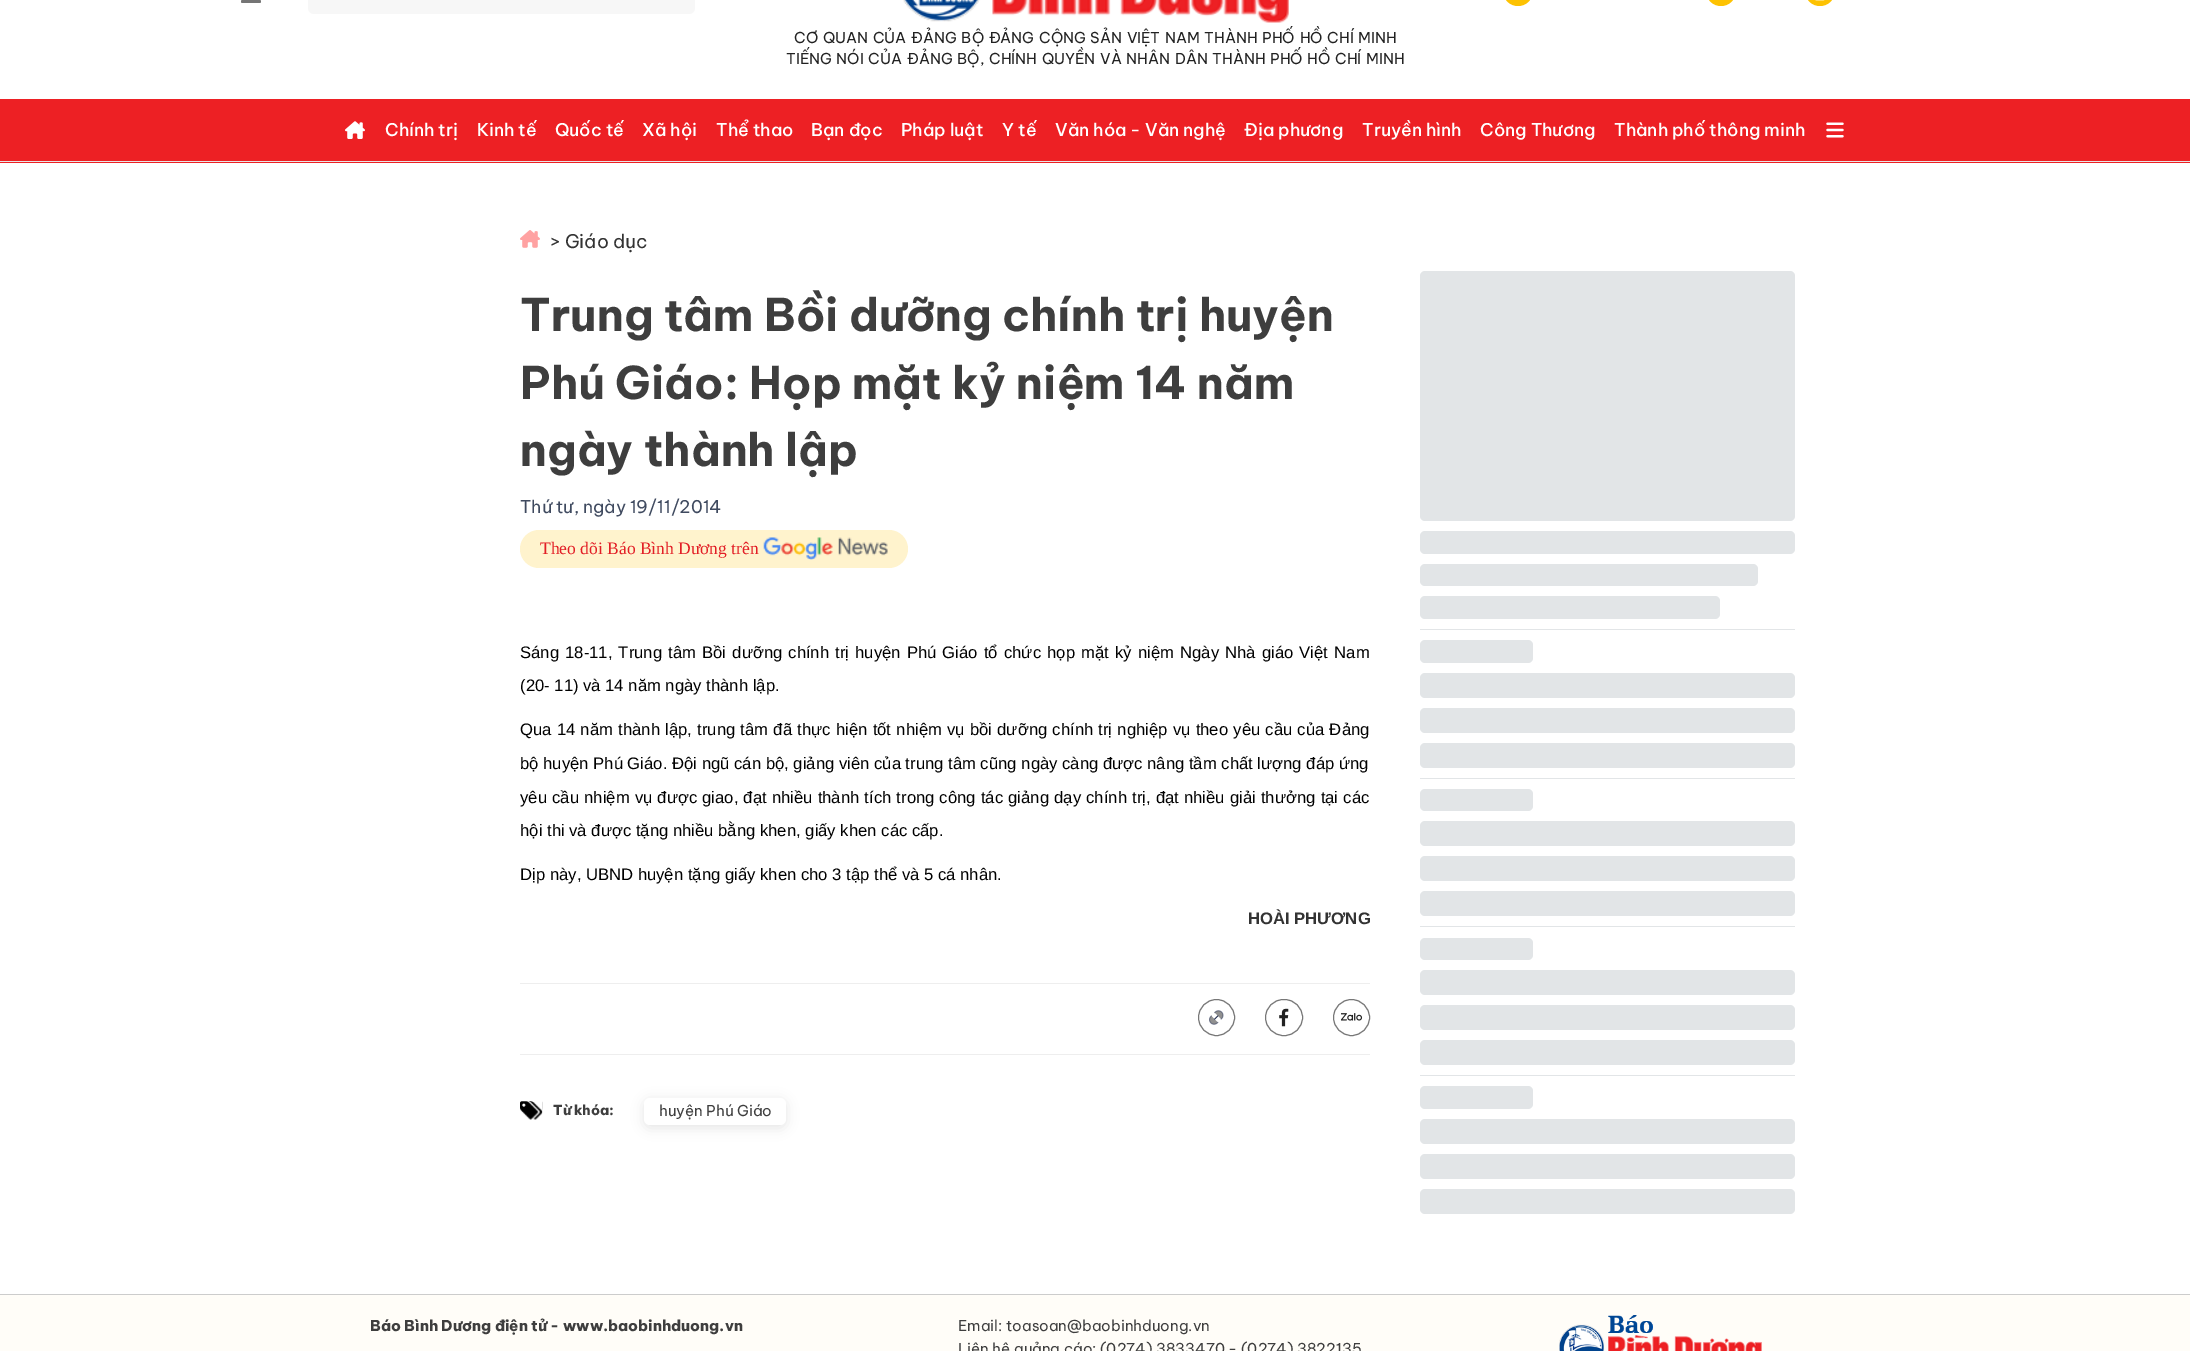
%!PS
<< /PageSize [2190 1351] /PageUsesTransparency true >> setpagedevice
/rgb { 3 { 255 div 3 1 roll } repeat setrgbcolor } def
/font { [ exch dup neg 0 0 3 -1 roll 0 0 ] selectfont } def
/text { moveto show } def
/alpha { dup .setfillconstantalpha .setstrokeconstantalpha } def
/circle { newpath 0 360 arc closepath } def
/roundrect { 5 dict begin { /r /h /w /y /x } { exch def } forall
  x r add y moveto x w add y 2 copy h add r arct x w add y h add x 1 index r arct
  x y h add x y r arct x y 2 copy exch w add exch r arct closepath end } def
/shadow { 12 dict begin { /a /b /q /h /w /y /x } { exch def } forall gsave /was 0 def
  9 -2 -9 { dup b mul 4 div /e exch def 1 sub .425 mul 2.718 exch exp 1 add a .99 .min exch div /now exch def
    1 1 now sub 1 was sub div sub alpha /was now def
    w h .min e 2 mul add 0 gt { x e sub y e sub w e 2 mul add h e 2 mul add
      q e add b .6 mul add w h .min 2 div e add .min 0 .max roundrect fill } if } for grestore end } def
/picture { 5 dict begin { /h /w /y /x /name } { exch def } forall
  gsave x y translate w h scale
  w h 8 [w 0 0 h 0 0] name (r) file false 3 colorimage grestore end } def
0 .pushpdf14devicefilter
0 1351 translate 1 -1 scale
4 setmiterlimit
255 255 255 rgb
0 0 2190 1351 rectfill
117 117 117 rgb
241 0 20 3 1.5 roundrect fill
247 247 247 rgb
308 -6 387 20 6 roundrect fill
253 194 2 rgb
1503 -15 30 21 15 roundrect fill
1706 -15 30 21 15 roundrect fill
1805 -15 30 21 15 roundrect fill
(img_01.rgb) 1815 0 10 1 picture
(img_02.rgb) 903 0 386 23 picture
237 32 36 rgb
0 99 2190 64 rectfill
230 230 230 rgb
0 161 2190 1 rectfill
(img_03.rgb) 345 121 20 18 picture
(img_04.rgb) 1826 122 18 16 picture
(img_05.rgb) 520 230 20 18 picture
255 243 205 rgb
520 530 388 38 19 roundrect fill
(img_06.rgb) 763 537 125 23 picture
238 238 238 rgb
520 983 850 1 rectfill
520 1054 850 1 rectfill
119 119 119 rgb
1216.5 1017.5 18 circle stroke
(img_07.rgb) 1209 1010 15 15 picture
1265.5 999.5 37 36 18 roundrect stroke
(img_08.rgb) 1279 1008 10 19 picture
1351.5 1017.5 18 circle stroke
(img_09.rgb) 1341 1013 22 8 picture
(img_10.rgb) 520 1101 23 19 picture
0 0 0 rgb
644 1100 142 28 6 6 0.1 shadow
255 255 255 rgb
644 1098 142 27 6 roundrect fill
226 229 231 rgb
1420 271 375 250 5 roundrect fill
1420 531 375 23 5 roundrect fill
1420 564 338 22 5 roundrect fill
1420 596 300 23 5 roundrect fill
1420 629 375 1 0.5 roundrect fill
1420 640 113 23 5 roundrect fill
1420 673 375 25 5 roundrect fill
1420 708 375 25 5 roundrect fill
1420 743 375 25 5 roundrect fill
1420 778 375 1 0.5 roundrect fill
1420 789 113 22 5 roundrect fill
1420 821 375 25 5 roundrect fill
1420 856 375 25 5 roundrect fill
1420 891 375 25 5 roundrect fill
1420 926 375 1 0.5 roundrect fill
1420 938 113 22 5 roundrect fill
1420 970 375 25 5 roundrect fill
1420 1005 375 25 5 roundrect fill
1420 1040 375 25 5 roundrect fill
1420 1075 375 1 0.5 roundrect fill
1420 1086 113 23 5 roundrect fill
1420 1119 375 25 5 roundrect fill
1420 1154 375 25 5 roundrect fill
1420 1189 375 25 5 roundrect fill
255 253 248 rgb
0 1295 2190 56 rectfill
204 204 204 rgb
0 1294 2190 1 rectfill
(img_11.rgb) 1559 1315 203 36 picture
/BeVietnamPro-Regular 15 font
34 34 34 rgb
794 43 moveto 1.25 0 32 (CƠ QUAN CỦA ĐẢNG BỘ ĐẢNG CỘNG SẢN VIỆT NAM THÀNH PHỐ HỒ CHÍ MINH) widthshow
786 64 moveto 1.25 0 32 (TIẾNG NÓI CỦA ĐẢNG BỘ, CHÍNH QUYỀN VÀ NHÂN DÂN THÀNH PHỐ HỒ CHÍ MINH) widthshow
/BeVietnamPro-Medium 17.5 font
255 255 255 rgb
(Chính trị) 385 136 text
(Kinh tế) 477 136 text
(Quốc tế) 555 136 text
(Xã hội) 642 136 text
(Thể thao) 716 136 text
(Bạn đọc) 811 136 text
(Pháp luật) 901 136 text
(Y tế) 1002 136 text
(Văn hóa - Văn nghệ) 1055 136 text
(Địa phương) 1244 136 text
(Truyền hình) 1362 136 text
(Công Thương) 1480 136 text
(Thành phố thông minh) 1614 136 text
/BeVietnamPro-Regular 18.75 font
51 51 51 rgb
(> Giáo dục) 550 248 text
/BeVietnamPro-Bold 45 font
62 62 62 rgb
(Trung tâm Bồi dưỡng chính trị huyện) 520 331 text
(Phú Giáo: Họp mặt kỷ niệm 14 năm) 520 399 text
(ngày thành lập) 520 466 text
/BeVietnamPro-Regular 17.5 font
63 74 95 rgb
(Thứ tư, ngày 19/11/2014) 520 513 text
/LiberationSerif-Regular 17.5 font
226 31 38 rgb
(Theo dõi Báo Bình Dương trên) 540 554 text
/LiberationSans-Regular 16.67 font
0 0 0 rgb
520 658 moveto 1.5 0 32 (Sáng 18-11, Trung tâm Bồi dưỡng chính trị huyện Phú Giáo tổ chức họp mặt kỷ niệm Ngày Nhà giáo Việt Nam) widthshow
(\(20- 11\) và 14 năm ngày thành lập.) 520 691 text
520 735 moveto 0.6 0 32 (Qua 14 năm thành lập, trung tâm đã thực hiện tốt nhiệm vụ bồi dưỡng chính trị nghiệp vụ theo yêu cầu của Đảng) widthshow
(bộ huyện Phú Giáo. Đội ngũ cán bộ, giảng viên của trung tâm cũng ngày càng được nâng tầm chất lượng đáp ứng) 520 769 text
520 803 moveto 0.5 0 32 (yêu cầu nhiệm vụ được giao, đạt nhiều thành tích trong công tác giảng dạy chính trị, đạt nhiều giải thưởng tại các) widthshow
(hội thi và được tặng nhiều bằng khen, giấy khen các cấp.) 520 836 text
(Dịp này, UBND huyện tặng giấy khen cho 3 tập thể và 5 cá nhân.) 520 880 text
/LiberationSans-Bold 16.67 font
51 51 51 rgb
(HOÀI PHƯƠNG) 1248 924 text
/BeVietnamPro-ExtraBold 13.75 font
62 62 62 rgb
(Từ khóa:) 553 1115 text
/BeVietnamPro-Regular 15 font
(huyện Phú Giáo) 659 1116 text
/BeVietnamPro-ExtraBold 15 font
(Báo Bình Dương điện tử - www.baobinhduong.vn) 370 1331 text
/BeVietnamPro-Regular 15 font
(Email: toasoan@baobinhduong.vn) 958 1331 text
(Liên hệ quảng cáo: \(0274\) 3833470 - \(0274\) 3822135) 958 1354 text
.poppdf14devicefilter showpage
